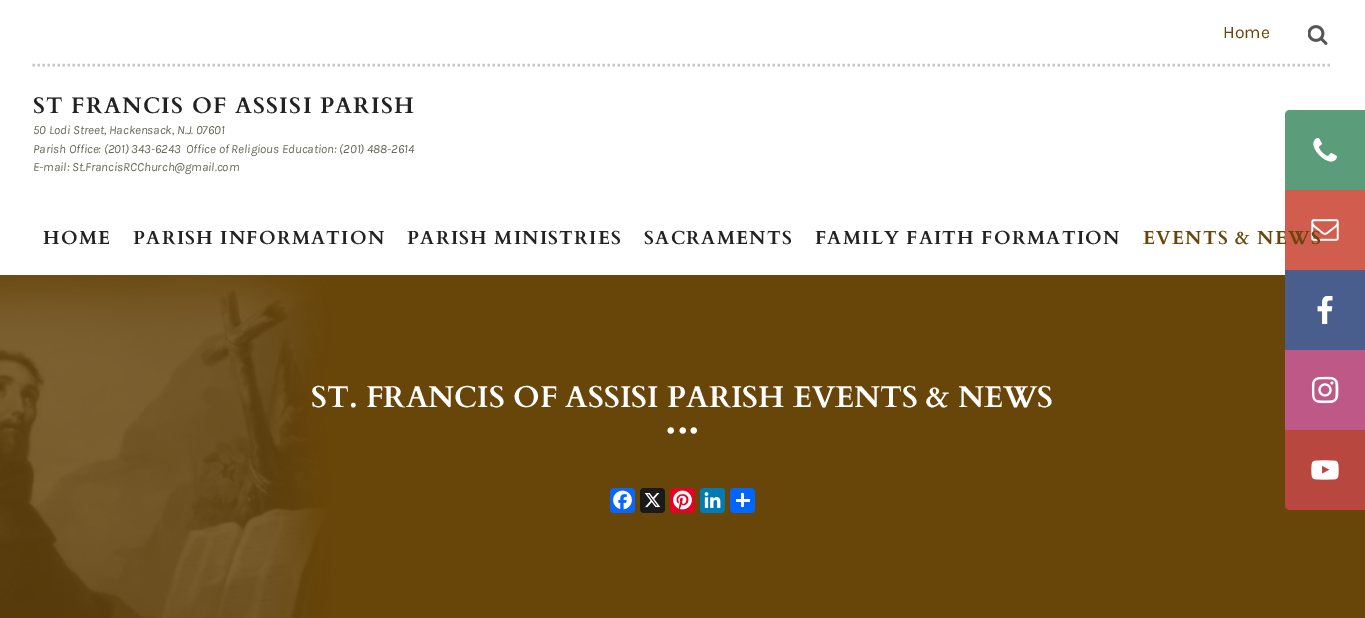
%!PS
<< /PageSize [1365 618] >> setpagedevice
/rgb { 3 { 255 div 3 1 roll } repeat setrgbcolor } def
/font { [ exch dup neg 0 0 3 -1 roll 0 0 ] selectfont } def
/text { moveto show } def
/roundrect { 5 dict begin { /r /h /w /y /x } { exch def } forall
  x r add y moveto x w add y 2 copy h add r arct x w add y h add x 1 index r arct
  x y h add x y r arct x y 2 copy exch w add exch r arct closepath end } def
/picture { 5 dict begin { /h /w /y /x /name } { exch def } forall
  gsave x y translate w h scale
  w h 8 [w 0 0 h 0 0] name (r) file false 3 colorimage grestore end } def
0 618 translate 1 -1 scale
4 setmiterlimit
255 255 255 rgb
0 0 1365 618 rectfill
(img_01.rgb) 1308 25 20 20 picture
199 199 199 rgb
2.5 setlinewidth
[2.5 2.5] 0 setdash
32.5 65 moveto 1300 0 rlineto stroke
91 157 122 rgb
1290 110 moveto 75 0 rlineto 0 80 rlineto -80 0 rlineto 0 -75 rlineto 0 -3 2 -5 5 -5 rcurveto closepath fill
(img_02.rgb) 1313 138 24 24 picture
209 93 78 rgb
1285 190 80 80 rectfill
(img_03.rgb) 1311 219 28 22 picture
104 69 9 rgb
0 275 1365 343 rectfill
73 94 141 rgb
1285 270 80 80 rectfill
(img_04.rgb) 1317 296 16 28 picture
190 88 134 rgb
1285 350 80 80 rectfill
(img_05.rgb) 1311 376 28 28 picture
183 71 63 rgb
1285 430 moveto 80 0 rlineto 0 80 rlineto -75 0 rlineto -3 0 -5 -2 -5 -5 rcurveto closepath fill
(img_06.rgb) 1311 460 28 20 picture
(img_07.rgb) 0 275 332 343 picture
8 102 255 rgb
610 488 25 25 4 roundrect fill
(img_08.rgb) 613 490 19 20 picture
26 26 26 rgb
640 488 25 25 4 roundrect fill
(img_09.rgb) 644 493 17 15 picture
230 0 35 rgb
670 488 25 25 4 roundrect fill
(img_10.rgb) 673 490 19 20 picture
0 123 181 rgb
700 488 25 25 4 roundrect fill
(img_11.rgb) 704 492 17 16 picture
1 102 255 rgb
730 488 25 25 4 roundrect fill
255 255 255 rgb
741 493 3 14 rectfill
736 499 14 3 rectfill
/Karla-Regular 17.5 font
104 69 9 rgb
(Home) 1223 38 text
/Cardo-Bold 22.5 font
34 34 34 rgb
33 113 moveto 1.25 0 (ST FRANCIS OF ASSISI PARISH) ashow
/Karla-Italic 12.5 font
102 102 85 rgb
(50 Lodi Street, Hackensack, N.J. 07601) 33 134 text
(Parish Office: \(201\) 343-6243  Office of Religious Education: \(201\) 488-2614) 33 153 text
(E-mail: St.FrancisRCChurch@gmail.com) 33 171 text
/Cardo-Bold 18.75 font
34 34 34 rgb
43 244 moveto 1.25 0 (HOME) ashow
133 244 moveto 1.25 0 (PARISH INFORMATION) ashow
407 244 moveto 1.25 0 (PARISH MINISTRIES) ashow
644 244 moveto 1.25 0 (SACRAMENTS) ashow
815 244 moveto 1.25 0 (FAMILY FAITH FORMATION) ashow
104 69 9 rgb
1143 244 moveto 1.25 0 (EVENTS & NEWS) ashow
/Cardo-Bold 30 font
255 255 255 rgb
(ST. FRANCIS OF ASSISI PARISH EVENTS & NEWS) 311 407 text
/Cardo-Bold 40 font
(...) 665 433 text
showpage
